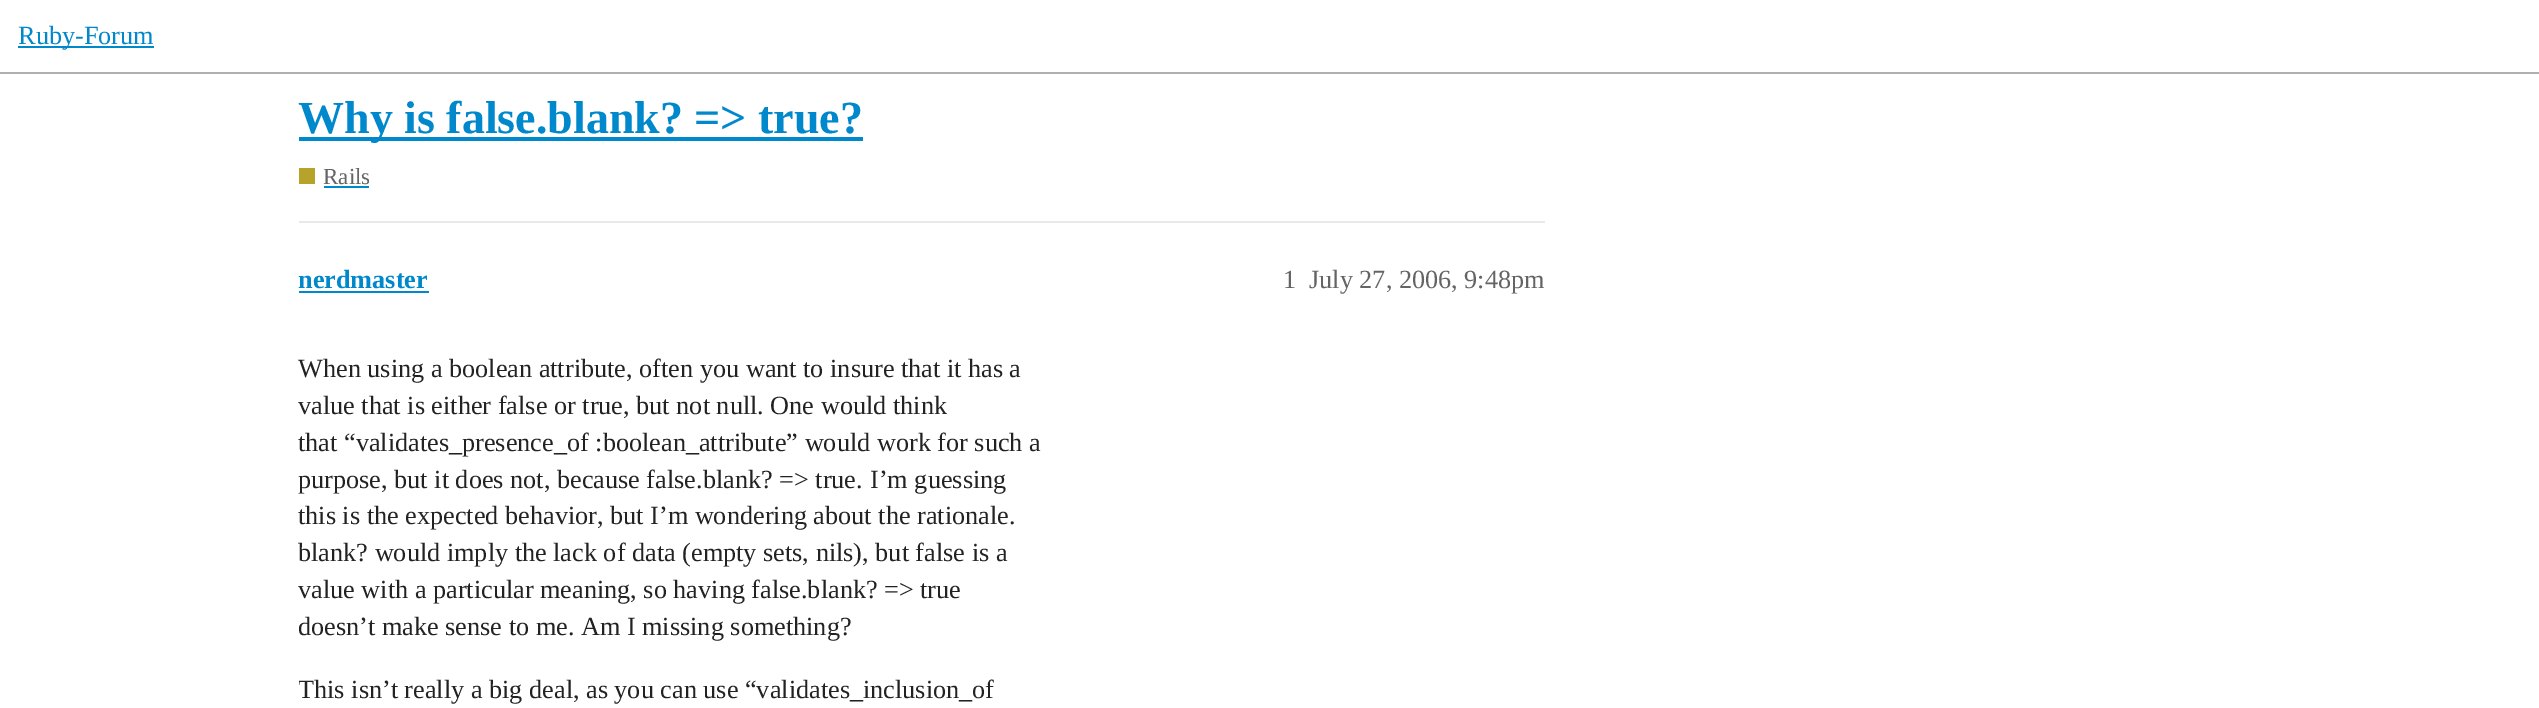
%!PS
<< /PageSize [2539 708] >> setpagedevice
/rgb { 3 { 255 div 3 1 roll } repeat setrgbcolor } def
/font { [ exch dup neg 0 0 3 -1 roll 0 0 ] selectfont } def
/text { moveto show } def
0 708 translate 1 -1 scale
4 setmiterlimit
255 255 255 rgb
0 0 2539 708 rectfill
175 175 175 rgb
0 72 2539 2 rectfill
0 136 204 rgb
18 46 136 2 rectfill
299 137 564 4 rectfill
184 163 42 rgb
299 168 16 16 rectfill
0 136 204 rgb
324 186 45 2 rectfill
233 233 233 rgb
299 221 1246 2 rectfill
0 136 204 rgb
299 291 130 2 rectfill
/LiberationSerif-Regular 26.25 font
(Ruby-Forum) 18 44 text
/LiberationSerif-Bold 46 font
(Why is false.blank? => true?) 298 133 text
/LiberationSerif-Regular 23 font
100 100 100 rgb
(Rails) 323 184 text
/LiberationSerif-Bold 26.25 font
0 136 204 rgb
(nerdmaster) 298 288 text
/LiberationSerif-Regular 26.25 font
100 100 100 rgb
(1) 1283 288 text
(July 27, 2006, 9:48pm) 1309 288 text
34 34 34 rgb
(When using a boolean attribute, often you want to insure that it has a) 298 377 text
(value that is either false or true, but not null. One would think) 298 414 text
(that “validates_presence_of :boolean_attribute” would work for such a) 298 451 text
(purpose, but it does not, because false.blank? => true.) 298 488 text
(I’m guessing) 870 488 text
(this is the expected behavior, but I’m wondering about the rationale.) 298 524 text
(blank? would imply the lack of data \(empty sets, nils\), but false is a) 298 561 text
(value with a particular meaning, so having false.blank? => true) 298 598 text
(doesn’t make sense to me. Am I missing something?) 298 635 text
gsave
299 326 1246 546 rectclip
(This isn’t really a big deal, as you can use “validates_inclusion_of) 298 698 text
grestore
showpage
